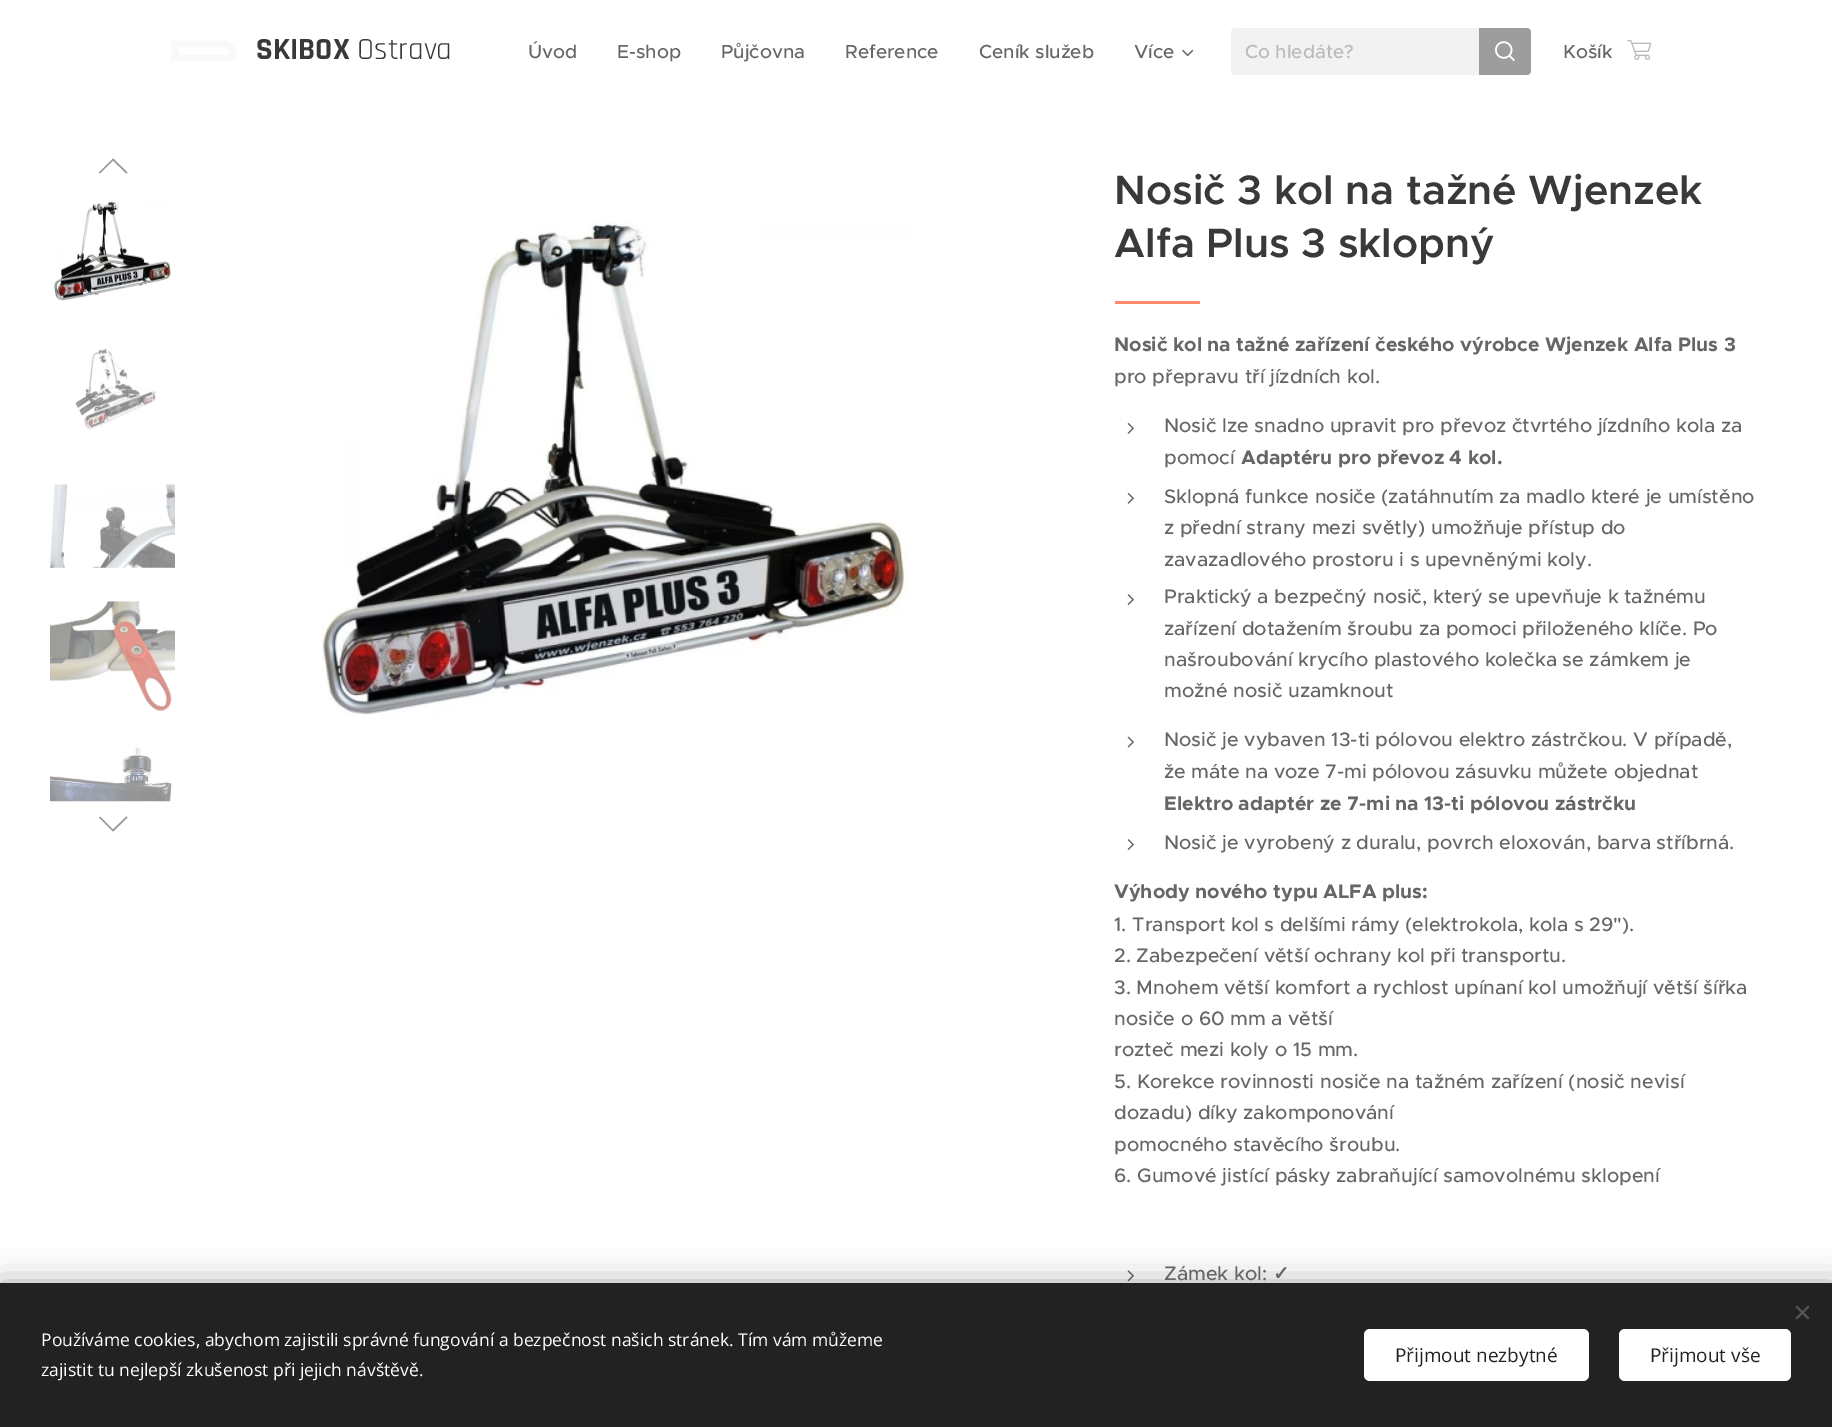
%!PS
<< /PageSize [1832 1427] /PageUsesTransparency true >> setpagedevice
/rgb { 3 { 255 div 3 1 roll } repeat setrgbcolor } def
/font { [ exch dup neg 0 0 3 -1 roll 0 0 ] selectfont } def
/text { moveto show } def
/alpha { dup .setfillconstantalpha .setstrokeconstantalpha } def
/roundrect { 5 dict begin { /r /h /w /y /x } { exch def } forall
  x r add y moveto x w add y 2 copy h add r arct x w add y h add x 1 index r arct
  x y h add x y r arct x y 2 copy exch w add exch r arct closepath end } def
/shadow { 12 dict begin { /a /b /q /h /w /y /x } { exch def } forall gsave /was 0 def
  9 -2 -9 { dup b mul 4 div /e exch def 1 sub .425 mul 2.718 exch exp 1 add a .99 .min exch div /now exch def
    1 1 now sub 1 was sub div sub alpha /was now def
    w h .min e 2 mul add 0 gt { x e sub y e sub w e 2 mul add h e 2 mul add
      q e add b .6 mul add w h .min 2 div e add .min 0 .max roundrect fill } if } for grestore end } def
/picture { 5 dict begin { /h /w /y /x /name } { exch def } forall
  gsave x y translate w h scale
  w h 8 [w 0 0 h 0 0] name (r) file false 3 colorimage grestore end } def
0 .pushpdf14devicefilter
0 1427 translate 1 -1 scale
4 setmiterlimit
255 255 255 rgb
0 0 1832 1427 rectfill
(img_01.rgb) 170 40 67 21 picture
(img_02.rgb) 1182 49 12 8 picture
242 242 242 rgb
1235 28 moveto 244 0 rlineto 0 47 rlineto -244 0 rlineto -2 0 -4 -2 -4 -4 rcurveto 0 -39 rlineto 0 -2 2 -4 4 -4 rcurveto closepath fill
157 157 157 rgb
1479 28 moveto 48 0 rlineto 2 0 4 2 4 4 rcurveto 0 39 rlineto 0 2 -2 4 -4 4 rcurveto -48 0 rlineto closepath fill
(img_03.rgb) 1495 41 20 21 picture
(img_04.rgb) 1627 40 25 20 picture
148 148 148 rgb
99 172.5 moveto 1 1 rlineto 13 -13 rlineto 13.5 13 rlineto 1 -1 rlineto -14.5 -14 rlineto closepath fill
(img_05.rgb) 54 201 118 100 picture
(img_06.rgb) 75 348 81 82 picture
(img_07.rgb) 50 483 125 85 picture
(img_08.rgb) 50 601 125 111 picture
(img_09.rgb) 50 746 123 56 picture
127.5 817.5 moveto -1 -1 rlineto -13.5 13 rlineto -13 -13 rlineto -1 1 rlineto 14 14 rlineto closepath fill
(img_10.rgb) 321 222 588 495 picture
255 138 101 rgb
1115 301 85 3 rectfill
(img_11.rgb) 1127 422 7 12 picture
(img_11.rgb) 1127 492 7 12 picture
(img_12.rgb) 1127 594 7 11 picture
(img_13.rgb) 1127 736 7 12 picture
(img_12.rgb) 1127 839 7 11 picture
(img_14.rgb) 1127 1270 7 12 picture
0 0 0 rgb
0 1283 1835 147 0 15.5 0.33 shadow
34 34 34 rgb
0 1283 1832 144 rectfill
85 85 85 rgb
1795.5 1318 moveto 12.5 -12.5 rlineto 1.5 1.5 rlineto -12.5 12.5 rlineto closepath fill
1797 1305.5 moveto 12.5 12.5 rlineto -1.5 1.5 rlineto -12.5 -12.5 rlineto closepath fill
255 255 255 rgb
1364 1329 225 52 6 roundrect fill
1619 1329 172 52 6 roundrect fill
/Rajdhani-Bold 31 font
57 57 57 rgb
(SKIBOX) 256 59 text
/Rajdhani-Regular 31 font
(Ostrava) 357 59 text
/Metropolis-Medium 19 font
102 102 102 rgb
(Úvod) 528 58 text
(E-shop) 617 58 text
(Půjčovna) 721 58 text
(Reference) 845 58 text
(Ceník služeb) 979 58 text
(Více) 1134 58 text
186 186 186 rgb
(Co hledáte?) 1245 58 text
102 102 102 rgb
(Košík) 1563 58 text
/Metropolis-SemiBold 41.25 font
57 57 57 rgb
(Nosič 3 kol na tažné Wjenzek) 1114 204 text
(Alfa Plus 3 sklopný) 1114 257 text
/Metropolis-Bold 19.6 font
102 102 102 rgb
(Nosič kol na tažné zařízení českého výrobce Wjenzek Alfa Plus 3) 1114 351 text
/Metropolis-Medium 19.6 font
(pro přepravu tří jízdních kol.) 1114 383 text
(Nosič lze snadno upravit pro převoz čtvrtého jízdního kola za) 1164 432 text
(pomocí) 1164 464 text
/Metropolis-Bold 19.6 font
(Adaptéru pro převoz 4 kol.) 1241 464 text
/Metropolis-Medium 19.6 font
(Sklopná funkce nosiče \(zatáhnutím za madlo které je umístěno) 1164 503 text
(z přední strany mezi světly\) umožňuje přístup do) 1164 534 text
(zavazadlového prostoru i s upevněnými koly.) 1164 566 text
(Praktický a bezpečný nosič, který se upevňuje k tažnému) 1164 603 text
(zařízení dotažením šroubu za pomoci přiloženého klíče. Po) 1164 635 text
(našroubování krycího plastového kolečka se zámkem je) 1164 666 text
(možné nosič uzamknout) 1164 697 text
(Nosič je vybaven 13-ti pólovou elektro zástrčkou. V případě,) 1164 746 text
(že máte na voze 7-mi pólovou zásuvku můžete objednat) 1164 778 text
/Metropolis-Bold 19.6 font
(Elektro adaptér ze 7-mi na 13-ti pólovou zástrčku) 1164 810 text
/Metropolis-Medium 19.6 font
(Nosič je vyrobený z duralu, povrch eloxován, barva stříbrná.) 1164 849 text
/Metropolis-Bold 19.6 font
(Výhody nového typu ALFA plus:) 1114 898 text
/Metropolis-Medium 19.6 font
(1. Transport kol s delšími rámy \(elektrokola, kola s 29"\).) 1114 931 text
(2. Zabezpečení větší ochrany kol při transportu.) 1114 962 text
(3. Mnohem větší komfort a rychlost upínaní kol umožňují větší šířka) 1114 994 text
(nosiče o 60 mm a větší) 1114 1025 text
(rozteč mezi koly o 15 mm.) 1114 1056 text
(5. Korekce rovinnosti nosiče na tažném zařízení \(nosič nevisí) 1114 1088 text
(dozadu\) díky zakomponování) 1114 1119 text
(pomocného stavěcího šroubu.) 1114 1151 text
(6. Gumové jistící pásky zabraňující samovolnému sklopení) 1114 1182 text
(Zámek kol:) 1164 1280 text
/DejaVuSans-Bold 19.6 font
(✓) 1273 1280 text
/OpenSans-Regular 17.5 font
255 255 255 rgb
(Používáme cookies, abychom zajistili správné fungování a bezpečnost našich stránek. Tím vám můžeme) 41 1346 text
(zajistit tu nejlepší zkušenost při jejich návštěvě.) 41 1376 text
/OpenSans-Regular 19 font
34 34 34 rgb
(Přijmout nezbytné) 1395 1362 text
(Přijmout vše) 1650 1362 text
.poppdf14devicefilter showpage
